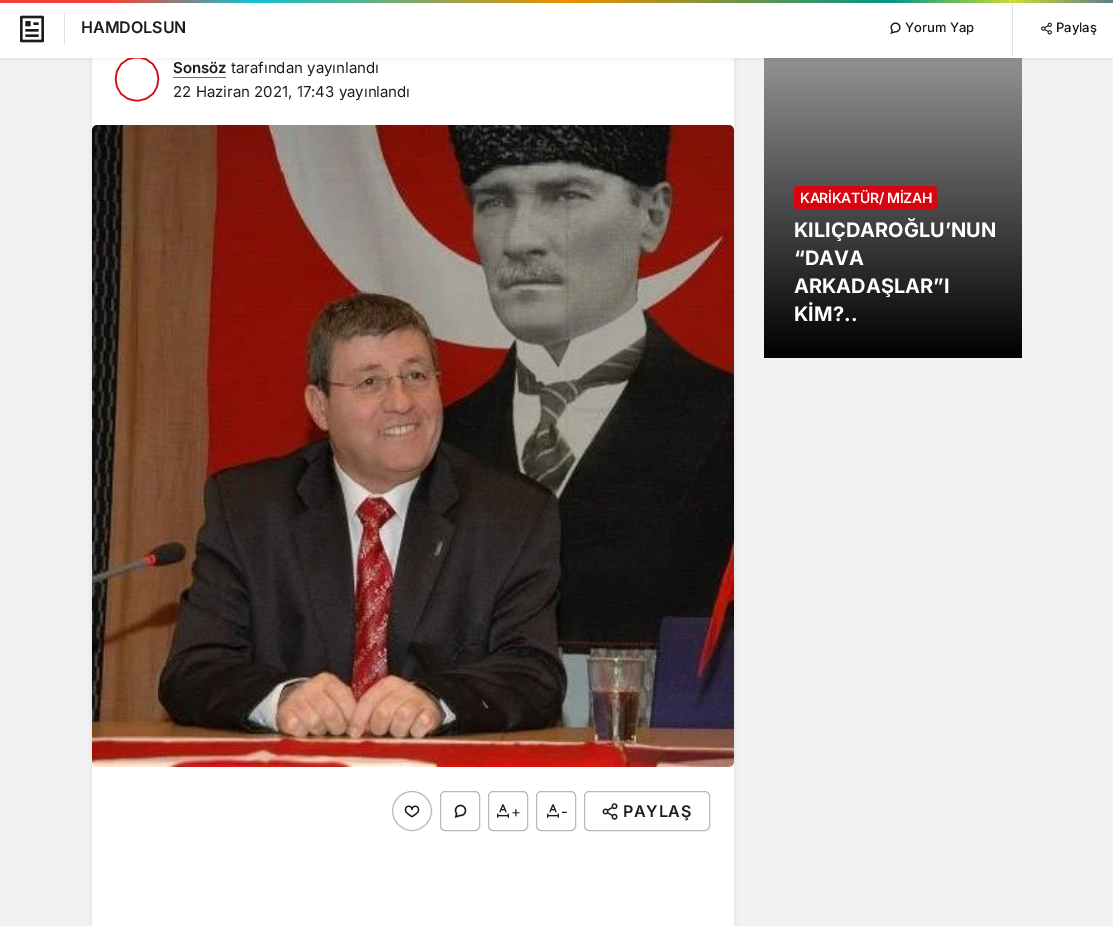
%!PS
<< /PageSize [1113 926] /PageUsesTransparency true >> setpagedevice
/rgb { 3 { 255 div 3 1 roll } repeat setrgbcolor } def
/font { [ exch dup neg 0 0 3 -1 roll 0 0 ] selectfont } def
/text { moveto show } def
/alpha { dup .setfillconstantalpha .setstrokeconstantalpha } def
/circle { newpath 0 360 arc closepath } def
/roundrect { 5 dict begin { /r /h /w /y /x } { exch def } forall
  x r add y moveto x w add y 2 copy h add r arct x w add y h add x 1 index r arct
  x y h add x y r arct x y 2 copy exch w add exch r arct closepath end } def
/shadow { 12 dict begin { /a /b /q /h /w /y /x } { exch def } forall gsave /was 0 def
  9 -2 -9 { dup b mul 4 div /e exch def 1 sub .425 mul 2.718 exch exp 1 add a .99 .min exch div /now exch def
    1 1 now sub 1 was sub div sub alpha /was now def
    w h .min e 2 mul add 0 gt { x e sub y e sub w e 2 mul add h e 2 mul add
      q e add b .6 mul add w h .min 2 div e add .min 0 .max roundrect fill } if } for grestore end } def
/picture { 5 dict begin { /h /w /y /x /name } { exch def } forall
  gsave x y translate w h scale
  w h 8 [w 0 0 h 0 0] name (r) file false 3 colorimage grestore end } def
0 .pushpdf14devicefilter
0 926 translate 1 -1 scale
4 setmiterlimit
242 242 243 rgb
0 0 1113 926 rectfill
50 53 61 rgb
92 -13 642 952 5 2.5 0.1 shadow
255 255 255 rgb
92 58 642 868 rectfill
215 5 15 rgb
1.6 setlinewidth
1 setlinecap
[0.54 0.54] 0 setdash
137 57.5 moveto 28.5 0 28.5 43 0 43 rcurveto -28.5 0 -28.5 -43 0 -43 rcurveto closepath stroke
gsave 764 58 moveto 258 0 rlineto 0 300 rlineto -258 0 rlineto closepath clip newpath
<< /ShadingType 2 /ColorSpace /DeviceRGB /Coords [893 -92 893 358] /Extend [true true] /Function << /FunctionType 2 /Domain [0 1] /C0 [0.859 0.859 0.859] /C1 [0 0 0] /N 1 >> >> shfill grestore
0 0 0 rgb
1 0 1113 58 0 2.5 0.1 shadow
255 255 255 rgb
0 3 1113 55 rectfill
222 223 226 rgb
1012 0 1 55 rectfill
gsave 0 0 moveto 1113 0 rlineto 0 3 rlineto -1113 0 rlineto closepath clip newpath
<< /ShadingType 2 /ColorSpace /DeviceRGB /Coords [0 1.5 1113 1.5] /Extend [true true] /Function << /FunctionType 3 /Domain [0 1] /Functions [<< /FunctionType 2 /Domain [0 1] /C0 [0.957 0.263 0.212] /C1 [0.957 0.263 0.212] /N 1 >> << /FunctionType 2 /Domain [0 1] /C0 [0.957 0.263 0.212] /C1 [0.071 0.761 0.82] /N 1 >> << /FunctionType 2 /Domain [0 1] /C0 [0.071 0.761 0.82] /C1 [0.933 0.561 0] /N 1 >> << /FunctionType 2 /Domain [0 1] /C0 [0.933 0.561 0] /C1 [0 0.588 0.533] /N 1 >> << /FunctionType 2 /Domain [0 1] /C0 [0 0.588 0.533] /C1 [0.804 0.863 0.224] /N 1 >> << /FunctionType 2 /Domain [0 1] /C0 [0.804 0.863 0.224] /C1 [0.376 0.49 0.545] /N 1 >>] /Bounds [0.1 0.23 0.51 0.8 0.91] /Encode [0 1 0 1 0 1 0 1 0 1 0 1] >> >> shfill grestore
(img_01.rgb) 20 15 24 28 picture
64 13 1 32 rectfill
(img_02.rgb) 890 22 11 12 picture
(img_03.rgb) 1041 22 11 13 picture
110 110 110 rgb
173 77 53 1 rectfill
(img_04.rgb) 92 125 642 642 picture
185 185 185 rgb
1 setlinewidth
0 setlinecap
[] 0 setdash
412 811 19.5 circle stroke
(img_05.rgb) 404 805 16 13 picture
440.5 791.5 39 39 4.5 roundrect stroke
(img_06.rgb) 454 804 13 14 picture
488.5 791.5 39 39 4.5 roundrect stroke
(img_07.rgb) 497 804 12 14 picture
536.5 791.5 39 39 4.5 roundrect stroke
(img_07.rgb) 547 804 12 14 picture
584.5 791.5 125 39 4.5 roundrect stroke
(img_08.rgb) 602 803 16 17 picture
215 5 15 rgb
794 186 143 23 3 roundrect fill
/Inter-SemiBold 16 font
25 28 32 rgb
(HAMDOLSUN) 81 33 text
/Inter-Medium 13 font
(Yorum Yap) 905 32 text
22 22 22 rgb
(Paylaş) 1056 32 text
/Inter-SemiBold 15 font
25 28 32 rgb
(Sonsöz) 173 73 text
/Inter-Regular 15 font
(tarafından yayınlandı) 231 73 text
(22 Haziran 2021, 17:43 yayınlandı) 173 97 text
(+) 511 817 text
(-) 561 817 text
/Inter-SemiBold 16 font
623 817 moveto 0.75 0 (PAYLAŞ) ashow
/Inter-SemiBold 14 font
255 255 255 rgb
800 203 moveto -0.3 0 (KARİKATÜR/ MİZAH) ashow
/Inter-Bold 20 font
(KILIÇDAROĞLU’NUN) 794 237 text
(“DAVA) 794 265 text
(ARKADAŞLAR”I) 794 293 text
(KİM?..) 794 321 text
.poppdf14devicefilter showpage
